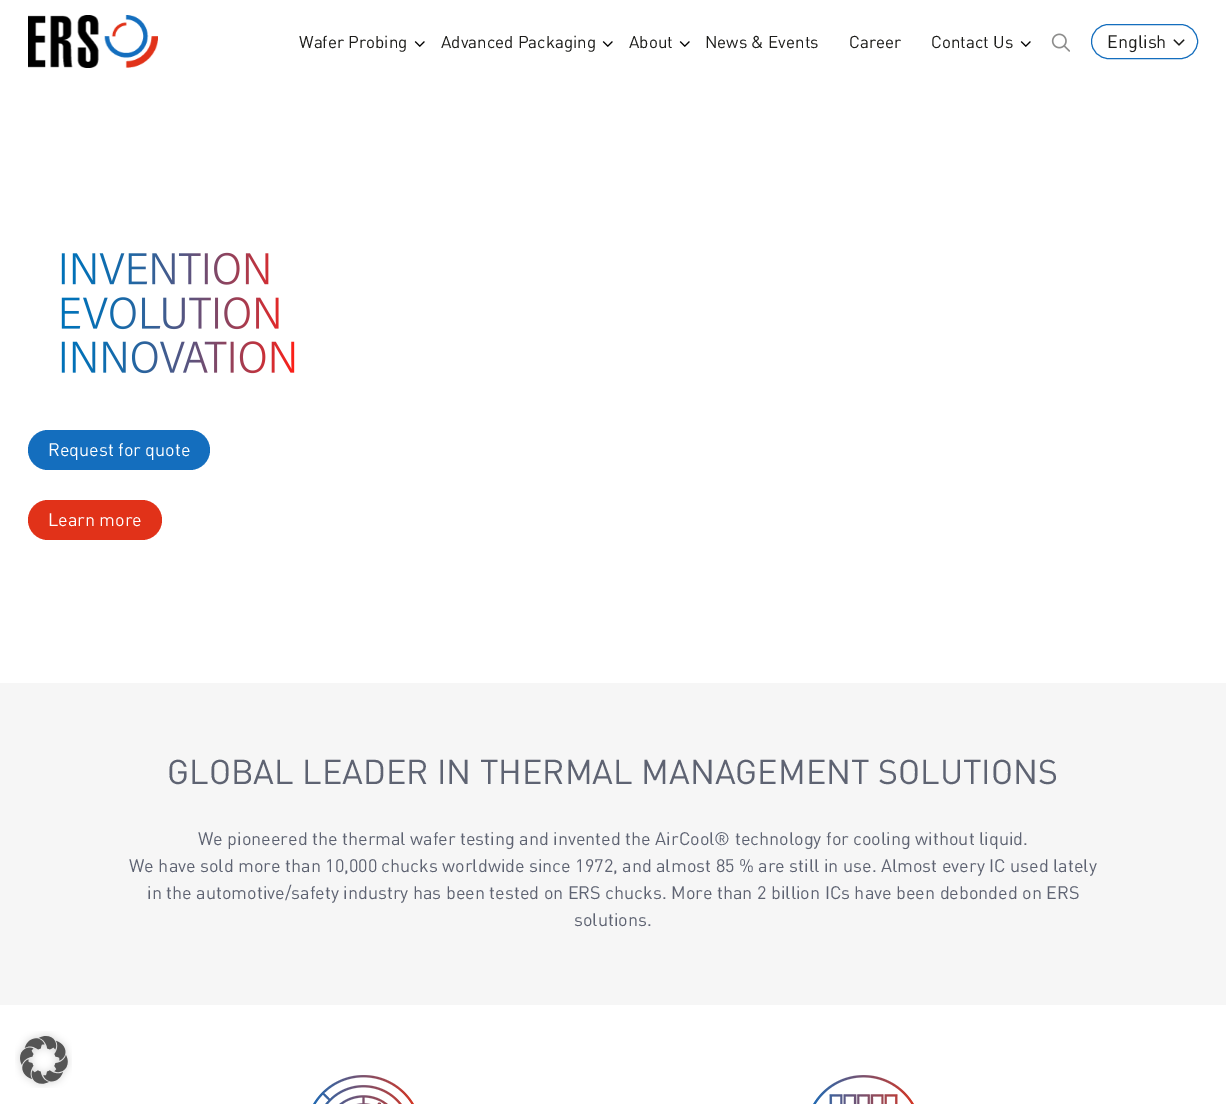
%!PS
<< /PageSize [1226 1104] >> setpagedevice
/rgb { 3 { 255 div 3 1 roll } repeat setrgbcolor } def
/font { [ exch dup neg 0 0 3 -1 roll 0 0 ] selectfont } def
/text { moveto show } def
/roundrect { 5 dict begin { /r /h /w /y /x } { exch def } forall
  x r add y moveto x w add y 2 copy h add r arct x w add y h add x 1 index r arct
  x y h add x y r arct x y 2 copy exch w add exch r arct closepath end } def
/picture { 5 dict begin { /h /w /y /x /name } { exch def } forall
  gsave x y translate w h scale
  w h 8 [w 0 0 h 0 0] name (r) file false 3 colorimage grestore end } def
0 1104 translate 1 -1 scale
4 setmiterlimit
255 255 255 rgb
0 0 1226 1104 rectfill
(img_01.rgb) 28 15 130 53 picture
(img_02.rgb) 414 41 11 6 picture
(img_02.rgb) 602 41 11 6 picture
(img_02.rgb) 679 41 11 6 picture
(img_02.rgb) 1020 41 11 6 picture
(img_03.rgb) 1051 33 19 19 picture
20 110 190 rgb
1091.5 24.5 106 34 17 roundrect stroke
(img_04.rgb) 1173 39 12 7 picture
(img_05.rgb) 61 252 234 122 picture
28 430 182 40 20 roundrect fill
225 50 25 rgb
28 500 134 40 20 roundrect fill
246 246 246 rgb
0 683 1226 322 rectfill
(img_06.rgb) 313 1075 101 29 picture
(img_07.rgb) 813 1075 101 29 picture
(img_08.rgb) 15 1031 57 57 picture
/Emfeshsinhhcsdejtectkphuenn-Regular 17 font
29 29 27 rgb
(Wafer Probing) 299 48 text
(Advanced Packaging) 441 48 text
(About) 629 48 text
(News & Events) 705 48 text
(Career) 849 48 text
(Contact Us) 931 48 text
/Emfeshsinhhcsdejtectkphuenn-Regular 18 font
(English) 1107 48 text
255 255 255 rgb
(Request for quote) 48 456 text
(Learn more) 48 526 text
/Emfeshsinhhcsdejtectkphuenn-Regular 34 font
94 99 114 rgb
(GLOBAL LEADER IN THERMAL MANAGEMENT SOLUTIONS) 167 784 text
/Emfeshsinhhcsdejtectkphuenn-Regular 18 font
(We pioneered the thermal wafer testing and invented the AirCool® technology for cooling without liquid.) 198 845 text
(We have sold more than 10,000 chucks worldwide since 1972, and almost 85 % are still in use. Almost every IC used lately) 129 872 text
(in the automotive/safety industry has been tested on ERS chucks. More than 2 billion ICs have been debonded on ERS) 147 899 text
(solutions.) 574 926 text
showpage
